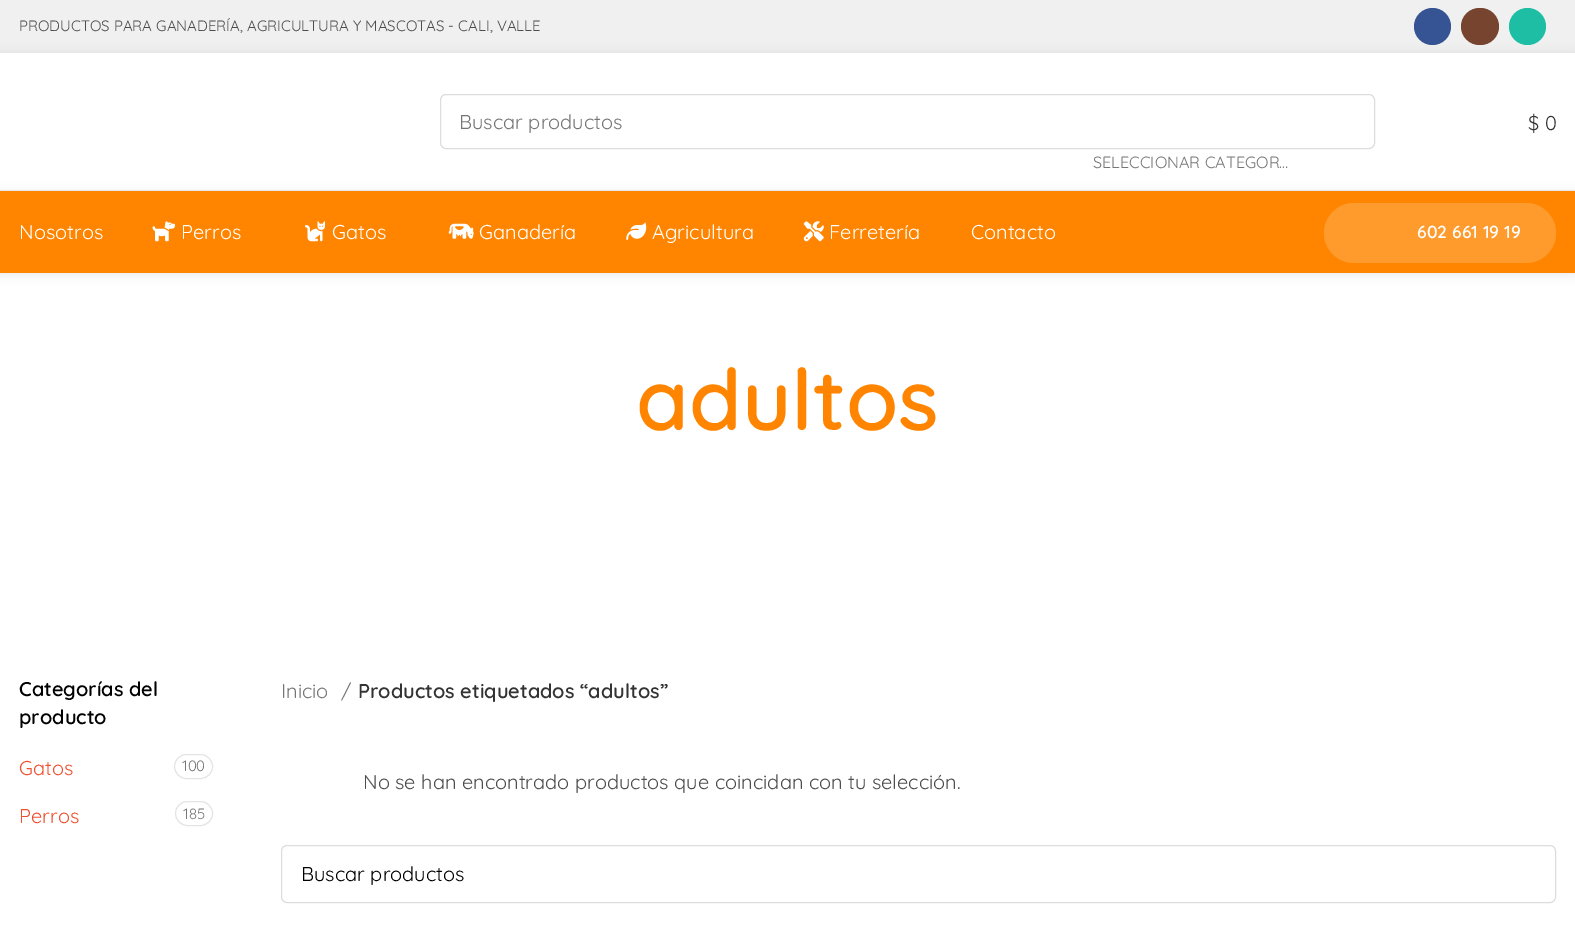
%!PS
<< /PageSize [1575 943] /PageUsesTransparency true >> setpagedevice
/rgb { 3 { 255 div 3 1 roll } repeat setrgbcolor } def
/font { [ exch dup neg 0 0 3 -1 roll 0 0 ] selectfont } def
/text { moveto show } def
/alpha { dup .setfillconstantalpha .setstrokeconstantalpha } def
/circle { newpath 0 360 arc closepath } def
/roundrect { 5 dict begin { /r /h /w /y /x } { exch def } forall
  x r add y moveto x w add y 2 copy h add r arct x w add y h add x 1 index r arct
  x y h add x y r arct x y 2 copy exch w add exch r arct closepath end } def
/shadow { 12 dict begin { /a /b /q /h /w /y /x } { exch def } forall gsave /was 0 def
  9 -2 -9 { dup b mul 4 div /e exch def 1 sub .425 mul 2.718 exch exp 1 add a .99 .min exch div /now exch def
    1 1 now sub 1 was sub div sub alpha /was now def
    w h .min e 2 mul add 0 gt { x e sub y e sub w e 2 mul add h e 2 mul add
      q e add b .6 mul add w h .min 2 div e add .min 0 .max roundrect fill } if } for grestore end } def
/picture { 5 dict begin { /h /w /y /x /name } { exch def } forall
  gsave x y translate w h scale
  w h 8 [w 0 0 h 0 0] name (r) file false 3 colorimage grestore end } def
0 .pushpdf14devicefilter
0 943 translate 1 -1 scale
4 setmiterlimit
255 255 255 rgb
0 0 1575 943 rectfill
240 240 240 rgb
0 0 1575 53 rectfill
0 0 0 rgb
0 54 1575 139 0 5 0.1 shadow
54 84 147 rgb
1432.5 26.5 18.5 circle fill
119 68 48 rgb
1461 8 38 37 18.5 roundrect fill
30 190 165 rgb
1527.5 26.5 18.5 circle fill
255 255 255 rgb
0 53 1575 137 rectfill
238 238 238 rgb
0 190 1575 1 rectfill
221 221 221 rgb
440.5 94.5 934 54 5.5 roundrect stroke
0 0 0 rgb
0 193 1575 81 0 5 0.1 shadow
255 133 0 rgb
0 191 1575 82 rectfill
(img_01.rgb) 152 221 23 21 picture
(img_02.rgb) 305 221 20 21 picture
(img_03.rgb) 448 223 26 16 picture
(img_04.rgb) 626 222 21 18 picture
(img_05.rgb) 803 221 21 21 picture
255 154 44 rgb
1324 203 232 60 30 roundrect fill
228 228 228 rgb
174.5 754.5 38 24 12 roundrect stroke
175.5 801.5 37 24 12 roundrect stroke
221 221 221 rgb
281.5 845.5 1274 57 5.5 roundrect stroke
/Quicksand-Regular 15 font
77 77 77 rgb
(PRODUCTOS PARA GANADERÍA, AGRICULTURA Y MASCOTAS - CALI, VALLE) 19 31 text
/Quicksand-Regular 20 font
118 118 118 rgb
(Buscar productos) 459 129 text
/Quicksand-Regular 16.25 font
(SELECCIONAR CATEGOR…) 1093 168 text
/Quicksand-Regular 20 font
51 51 51 rgb
($ 0) 1528 130 text
255 255 255 rgb
(Nosotros) 19 239 text
(Perros) 181 239 text
(Gatos) 332 239 text
(Ganadería) 479 239 text
(Agricultura) 652 239 text
(Ferretería) 829 239 text
(Contacto) 971 239 text
/Quicksand-SemiBold 17.5 font
(602 661 19 19) 1417 238 text
/Quicksand-SemiBold 85 font
255 133 0 rgb
(adultos) 636 430 text
/Quicksand-SemiBold 20 font
0 0 0 rgb
(Categorías del) 19 696 text
(producto) 19 724 text
/Quicksand-Regular 20 font
239 80 48 rgb
(Gatos) 19 775 text
/Quicksand-Regular 15 font
118 118 118 rgb
(100) 182 771 text
/Quicksand-Regular 20 font
239 80 48 rgb
(Perros) 19 823 text
/Quicksand-Regular 15 font
118 118 118 rgb
(185) 183 819 text
/Quicksand-Regular 20 font
(Inicio) 281 698 text
(/) 341 698 text
/Quicksand-SemiBold 20 font
51 51 51 rgb
(Productos etiquetados “adultos”) 358 698 text
/Quicksand-Regular 20 font
77 77 77 rgb
(No se han encontrado productos que coincidan con tu selección.) 363 789 text
0 0 0 rgb
(Buscar productos) 301 881 text
.poppdf14devicefilter showpage
